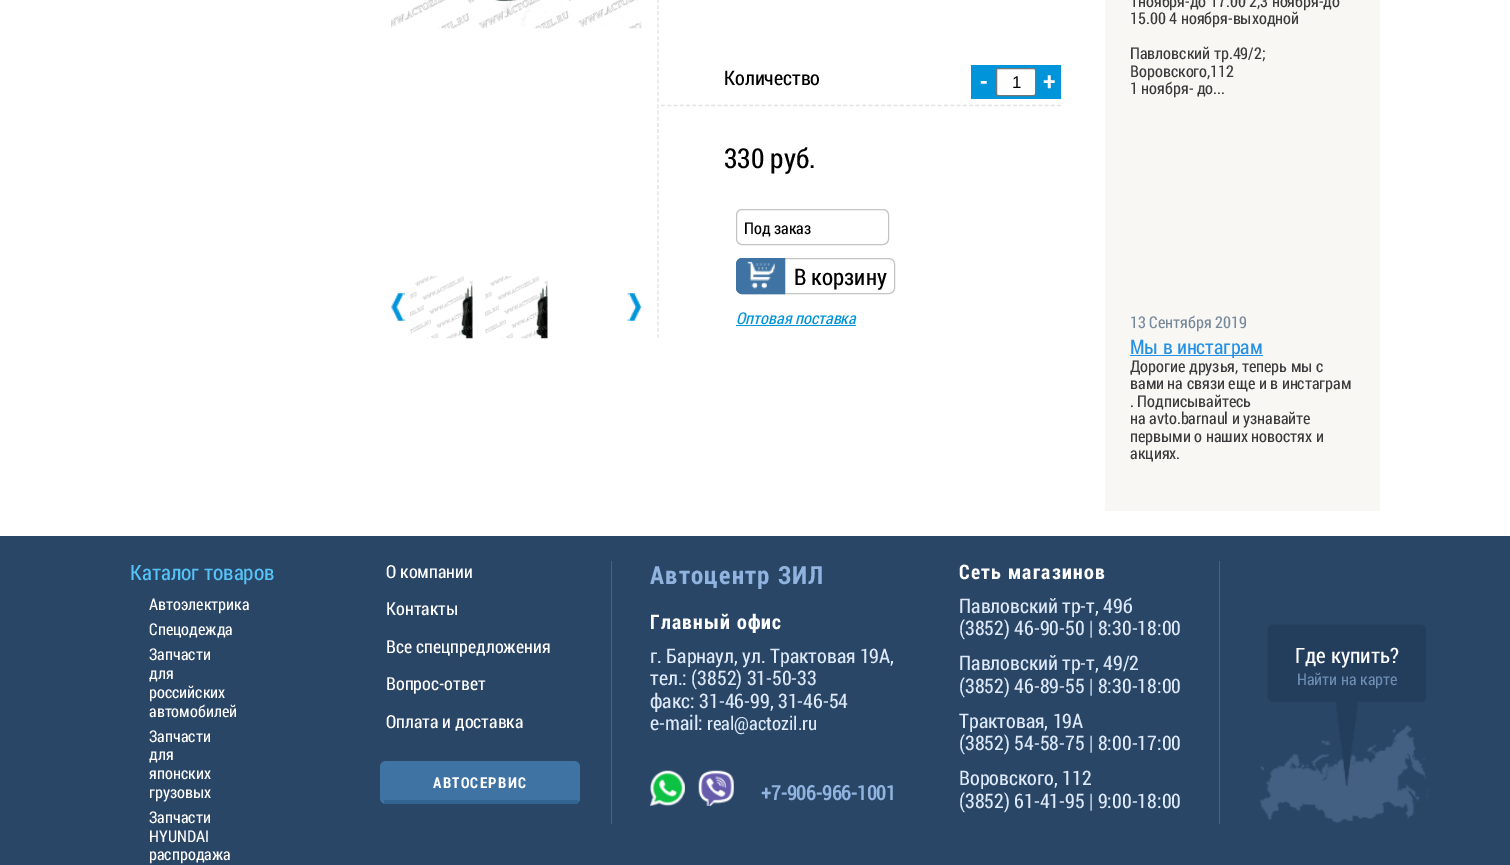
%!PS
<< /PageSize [1510 865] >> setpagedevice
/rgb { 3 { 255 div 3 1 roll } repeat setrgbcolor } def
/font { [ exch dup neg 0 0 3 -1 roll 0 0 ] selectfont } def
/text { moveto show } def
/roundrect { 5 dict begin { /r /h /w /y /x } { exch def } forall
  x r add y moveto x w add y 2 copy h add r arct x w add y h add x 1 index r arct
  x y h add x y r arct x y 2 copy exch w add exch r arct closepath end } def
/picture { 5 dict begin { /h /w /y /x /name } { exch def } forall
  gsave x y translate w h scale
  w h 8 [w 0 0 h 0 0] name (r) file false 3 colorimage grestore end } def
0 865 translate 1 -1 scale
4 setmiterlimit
255 255 255 rgb
0 0 1510 865 rectfill
228 228 228 rgb
1.2 setlinewidth
[3.75 2.46] 0 setdash
658 -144 moveto 0 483 rlineto stroke
(img_01.rgb) 391 0 251 29 picture
(img_02.rgb) 391 293 14 28 picture
(img_03.rgb) 410 276 63 63 picture
(img_03.rgb) 485 276 63 63 picture
(img_04.rgb) 627 293 15 28 picture
[3.75 2.54] 0 setdash
661 105.5 moveto 400 0 rlineto stroke
0 148 218 rgb
971 65 90 34 rectfill
255 255 255 rgb
996.5 68.5 39 27 2 roundrect gsave fill grestore
118 118 118 rgb
1 setlinewidth
[] 0 setdash
stroke
197 197 197 rgb
736.5 209.5 152 35 5.5 roundrect stroke
736.5 258.5 158 35 5.5 roundrect stroke
63 115 163 rgb
742 258.5 moveto 42.5 0 rlineto 0 35 rlineto -42.5 0 rlineto -3 0 -5.5 -2.5 -5.5 -5.5 rcurveto 0 -24 rlineto 0 -3 2.5 -5.5 5.5 -5.5 rcurveto closepath gsave fill grestore
stroke
(img_05.rgb) 747 261 28 28 picture
0 148 218 rgb
736 325 120 1 rectfill
248 247 244 rgb
1105 0 275 511 rectfill
38 145 228 rgb
1130 355 133 1 rectfill
42 70 103 rgb
0 536 1510 329 rectfill
63 115 163 rgb
380 761 200 43 6 roundrect fill
50 100 146 rgb
384 800 194 4 rectfill
74 98 126 rgb
611 561 1 263 rectfill
(img_06.rgb) 650 770 35 36 picture
(img_07.rgb) 698 770 36 36 picture
1219 561 1 263 rectfill
(img_08.rgb) 1260 725 169 98 picture
(img_09.rgb) 1267 624 159 162 picture
/RobotoCondensed-Regular 20 font
0 0 0 rgb
(Количество) 724 85 text
/RobotoCondensed-Bold 24 font
255 255 255 rgb
(-) 980 90 text
/LiberationSans-Regular 17 font
0 0 0 rgb
(1) 1012 88 text
/RobotoCondensed-Bold 24 font
255 255 255 rgb
(+) 1043 90 text
/RobotoCondensed-Regular 27.5 font
0 0 0 rgb
(330 руб.) 724 168 text
/RobotoCondensed-Regular 16.25 font
(Под заказ) 744 234 text
/RobotoCondensed-Regular 22.75 font
(В корзину) 794 285 text
/RobotoCondensed-Italic 16.25 font
0 148 218 rgb
(Оптовая поставка) 736 324 text
/RobotoCondensed-Regular 16.25 font
59 59 59 rgb
(1ноября-до 17.00 2,3 ноября-до) 1130 7 text
(15.00 4 ноября-выходной) 1130 24 text
(Павловский тр.49/2;) 1130 59 text
(Воровского,112) 1130 77 text
(1 ноября- до...) 1130 94 text
118 136 156 rgb
(13 Сентября 2019) 1130 328 text
/RobotoCondensed-Regular 20 font
38 145 228 rgb
(Мы в инстаграм) 1130 354 text
/RobotoCondensed-Regular 16.25 font
59 59 59 rgb
(Дорогие друзья, теперь мы с) 1130 372 text
(вами на связи еще и в инстаграм) 1130 389 text
(. Подписывайтесь) 1130 407 text
(на avto.barnaul и узнавайте) 1130 424 text
(первыми о наших новостях и) 1130 442 text
(акциях.) 1130 459 text
/RobotoCondensed-Regular 21.25 font
86 195 247 rgb
(Каталог товаров) 130 580 text
/RobotoCondensed-Regular 16.25 font
255 255 255 rgb
(Автоэлектрика) 149 610 text
(Спецодежда) 149 635 text
(Запчасти) 149 660 text
(для) 149 679 text
(российских) 149 698 text
(автомобилей) 149 717 text
(Запчасти) 149 742 text
(для) 149 760 text
(японских) 149 779 text
(грузовых) 149 798 text
(Запчасти) 149 823 text
(HYUNDAI) 149 842 text
(распродажа) 149 860 text
/RobotoCondensed-Regular 18 font
(О компании) 386 578 text
(Контакты) 386 615 text
(Все спецпредложения) 386 653 text
(Вопрос-ответ) 386 690 text
(Оплата и доставка) 386 728 text
/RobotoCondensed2-Bold 15 font
433 788 moveto 1.25 0 (АВТОСЕРВИС) ashow
/RobotoCondensed2-Bold 25 font
144 180 223 rgb
650 584 moveto 1.25 0 (Автоцентр ЗИЛ) ashow
/RobotoCondensed2-Bold 20 font
255 255 255 rgb
650 629 moveto 1.25 0 (Главный офис) ashow
/RobotoCondensed-Regular 20 font
221 233 248 rgb
(г. Барнаул, ул. Трактовая 19А,) 650 663 text
(тел.: \(3852\) 31-50-33) 650 685 text
(факс: 31-46-99, 31-46-54) 650 708 text
(e-mail:) 650 730 text
/RobotoCondensed-Regular 18.75 font
(real@actozil.ru) 707 730 text
/RobotoCondensed-Bold 20 font
144 180 223 rgb
(+7-906-966-1001) 761 800 text
/RobotoCondensed2-Bold 20 font
255 255 255 rgb
959 579 moveto 1.25 0 (Сеть магазинов) ashow
/RobotoCondensed-Regular 20 font
221 233 248 rgb
(Павловский тр-т, 49б) 959 613 text
(\(3852\) 46-90-50 | 8:30-18:00) 959 635 text
(Павловский тр-т, 49/2) 959 670 text
(\(3852\) 46-89-55 | 8:30-18:00) 959 693 text
(Трактовая, 19А) 959 728 text
(\(3852\) 54-58-75 | 8:00-17:00) 959 750 text
(Воровского, 112) 959 785 text
(\(3852\) 61-41-95 | 9:00-18:00) 959 808 text
/RobotoCondensed-Regular 21.25 font
255 255 255 rgb
(Где купить?) 1295 663 text
/RobotoCondensed-Regular 16.25 font
109 140 177 rgb
(Найти на карте) 1297 685 text
showpage
